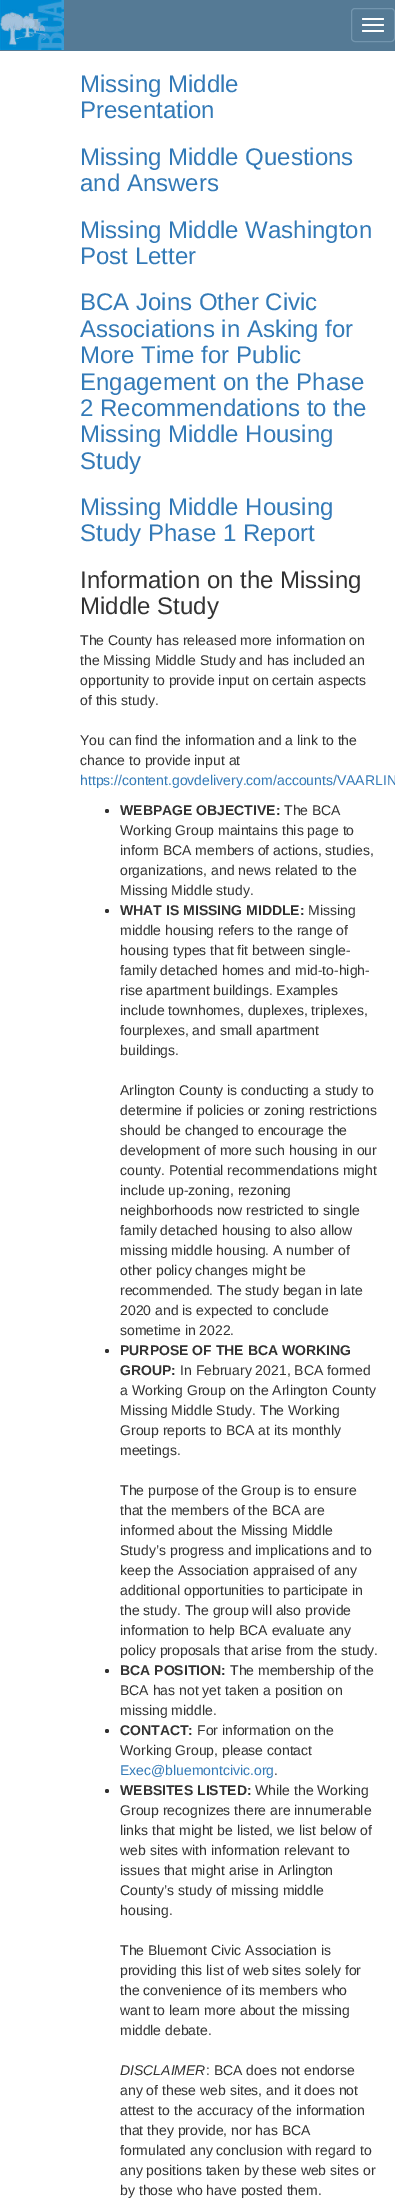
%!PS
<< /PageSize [395 2199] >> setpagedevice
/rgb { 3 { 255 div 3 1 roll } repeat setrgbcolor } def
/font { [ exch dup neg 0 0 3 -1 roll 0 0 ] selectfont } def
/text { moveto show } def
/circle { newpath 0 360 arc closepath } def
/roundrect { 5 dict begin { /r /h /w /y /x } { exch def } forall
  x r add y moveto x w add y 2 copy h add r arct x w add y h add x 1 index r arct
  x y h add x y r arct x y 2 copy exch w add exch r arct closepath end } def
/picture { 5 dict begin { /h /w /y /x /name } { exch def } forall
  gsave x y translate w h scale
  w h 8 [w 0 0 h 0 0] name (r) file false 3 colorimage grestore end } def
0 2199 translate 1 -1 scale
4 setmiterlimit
255 255 255 rgb
0 0 395 2199 rectfill
85 122 149 rgb
64 0 331 50 rectfill
0 50 395 1 rectfill
(img_01.rgb) 0 0 64 50 picture
115 149 174 rgb
351.5 8.5 43 33 3.5 roundrect stroke
255 255 255 rgb
362 18 22 2 1 roundrect fill
362 24 22 2 1 roundrect fill
362 30 22 2 1 roundrect fill
51 51 51 rgb
107 811 2 circle fill
107 911 2 circle fill
107 1351 2 circle fill
107 1671 2 circle fill
107 1731 2 circle fill
107 1791 2 circle fill
/LiberationSans-Regular 24 font
51 122 183 rgb
(Missing Middle) 80 92 text
(Presentation) 80 118 text
(Missing Middle Questions) 80 165 text
(and Answers) 80 191 text
(Missing Middle Washington) 80 238 text
(Post Letter) 80 264 text
(BCA Joins Other Civic) 80 310 text
(Associations in Asking for) 80 337 text
(More Time for Public) 80 363 text
(Engagement on the Phase) 80 390 text
(2 Recommendations to the) 80 416 text
(Missing Middle Housing) 80 442 text
(Study) 80 469 text
(Missing Middle Housing) 80 515 text
(Study Phase 1 Report) 80 541 text
51 51 51 rgb
(Information on the Missing) 80 588 text
(Middle Study) 80 614 text
/LiberationSans-Regular 14 font
(The County has released more information on) 80 645 text
(the Missing Middle Study and has included an) 80 665 text
(opportunity to provide input on certain aspects) 80 685 text
(of this study.) 80 705 text
(You can find the information and a link to the) 80 745 text
(chance to provide input at) 80 765 text
51 122 183 rgb
(https://content.govdelivery.com/accounts/VAARLIN) 80 785 text
/LiberationSans-Bold 14 font
51 51 51 rgb
(WEBPAGE OBJECTIVE:) 120 815 text
/LiberationSans-Regular 14 font
(The BCA) 284 815 text
(Working Group maintains this page to) 120 835 text
(inform BCA members of actions, studies,) 120 855 text
(organizations, and news related to the) 120 875 text
(Missing Middle study.) 120 895 text
/LiberationSans-Bold 14 font
(WHAT IS MISSING MIDDLE:) 120 915 text
/LiberationSans-Regular 14 font
(Missing) 308 915 text
(middle housing refers to the range of) 120 935 text
(housing types that fit between single-) 120 955 text
(family detached homes and mid-to-high-) 120 975 text
(rise apartment buildings. Examples) 120 995 text
(include townhomes, duplexes, triplexes,) 120 1015 text
(fourplexes, and small apartment) 120 1035 text
(buildings.) 120 1055 text
(Arlington County is conducting a study to) 120 1095 text
(determine if policies or zoning restrictions) 120 1115 text
(should be changed to encourage the) 120 1135 text
(development of more such housing in our) 120 1155 text
(county. Potential recommendations might) 120 1175 text
(include up-zoning, rezoning) 120 1195 text
(neighborhoods now restricted to single) 120 1215 text
(family detached housing to also allow) 120 1235 text
(missing middle housing. A number of) 120 1255 text
(other policy changes might be) 120 1275 text
(recommended. The study began in late) 120 1295 text
(2020 and is expected to conclude) 120 1315 text
(sometime in 2022.) 120 1335 text
/LiberationSans-Bold 14 font
(PURPOSE OF THE BCA WORKING) 120 1355 text
(GROUP:) 120 1375 text
/LiberationSans-Regular 14 font
(In February 2021, BCA formed) 180 1375 text
(a Working Group on the Arlington County) 120 1395 text
(Missing Middle Study. The Working) 120 1415 text
(Group reports to BCA at its monthly) 120 1435 text
(meetings.) 120 1455 text
(The purpose of the Group is to ensure) 120 1495 text
(that the members of the BCA are) 120 1515 text
(informed about the Missing Middle) 120 1535 text
(Study’s progress and implications and to) 120 1555 text
(keep the Association appraised of any) 120 1575 text
(additional opportunities to participate in) 120 1595 text
(the study. The group will also provide) 120 1615 text
(information to help BCA evaluate any) 120 1635 text
(policy proposals that arise from the study.) 120 1655 text
/LiberationSans-Bold 14 font
(BCA POSITION:) 120 1675 text
/LiberationSans-Regular 14 font
(The membership of the) 230 1675 text
(BCA has not yet taken a position on) 120 1695 text
(missing middle.) 120 1715 text
/LiberationSans-Bold 14 font
(CONTACT:) 120 1735 text
/LiberationSans-Regular 14 font
(For information on the) 197 1735 text
(Working Group, please contact) 120 1755 text
51 122 183 rgb
(Exec@bluemontcivic.org) 120 1775 text
51 51 51 rgb
(.) 274 1775 text
/LiberationSans-Bold 14 font
(WEBSITES LISTED:) 120 1795 text
/LiberationSans-Regular 14 font
(While the Working) 255 1795 text
(Group recognizes there are innumerable) 120 1815 text
(links that might be listed, we list below of) 120 1835 text
(web sites with information relevant to) 120 1855 text
(issues that might arise in Arlington) 120 1875 text
(County’s study of missing middle) 120 1895 text
(housing.) 120 1915 text
(The Bluemont Civic Association is) 120 1955 text
(providing this list of web sites solely for) 120 1975 text
(the convenience of its members who) 120 1995 text
(want to learn more about the missing) 120 2015 text
(middle debate.) 120 2035 text
/LiberationSans-Italic 14 font
(DISCLAIMER) 120 2075 text
/LiberationSans-Regular 14 font
(: BCA does not endorse) 206 2075 text
(any of these web sites, and it does not) 120 2095 text
(attest to the accuracy of the information) 120 2115 text
(that they provide, nor has BCA) 120 2135 text
(formulated any conclusion with regard to) 120 2155 text
(any positions taken by these web sites or) 120 2175 text
(by those who have posted them.) 120 2195 text
showpage
